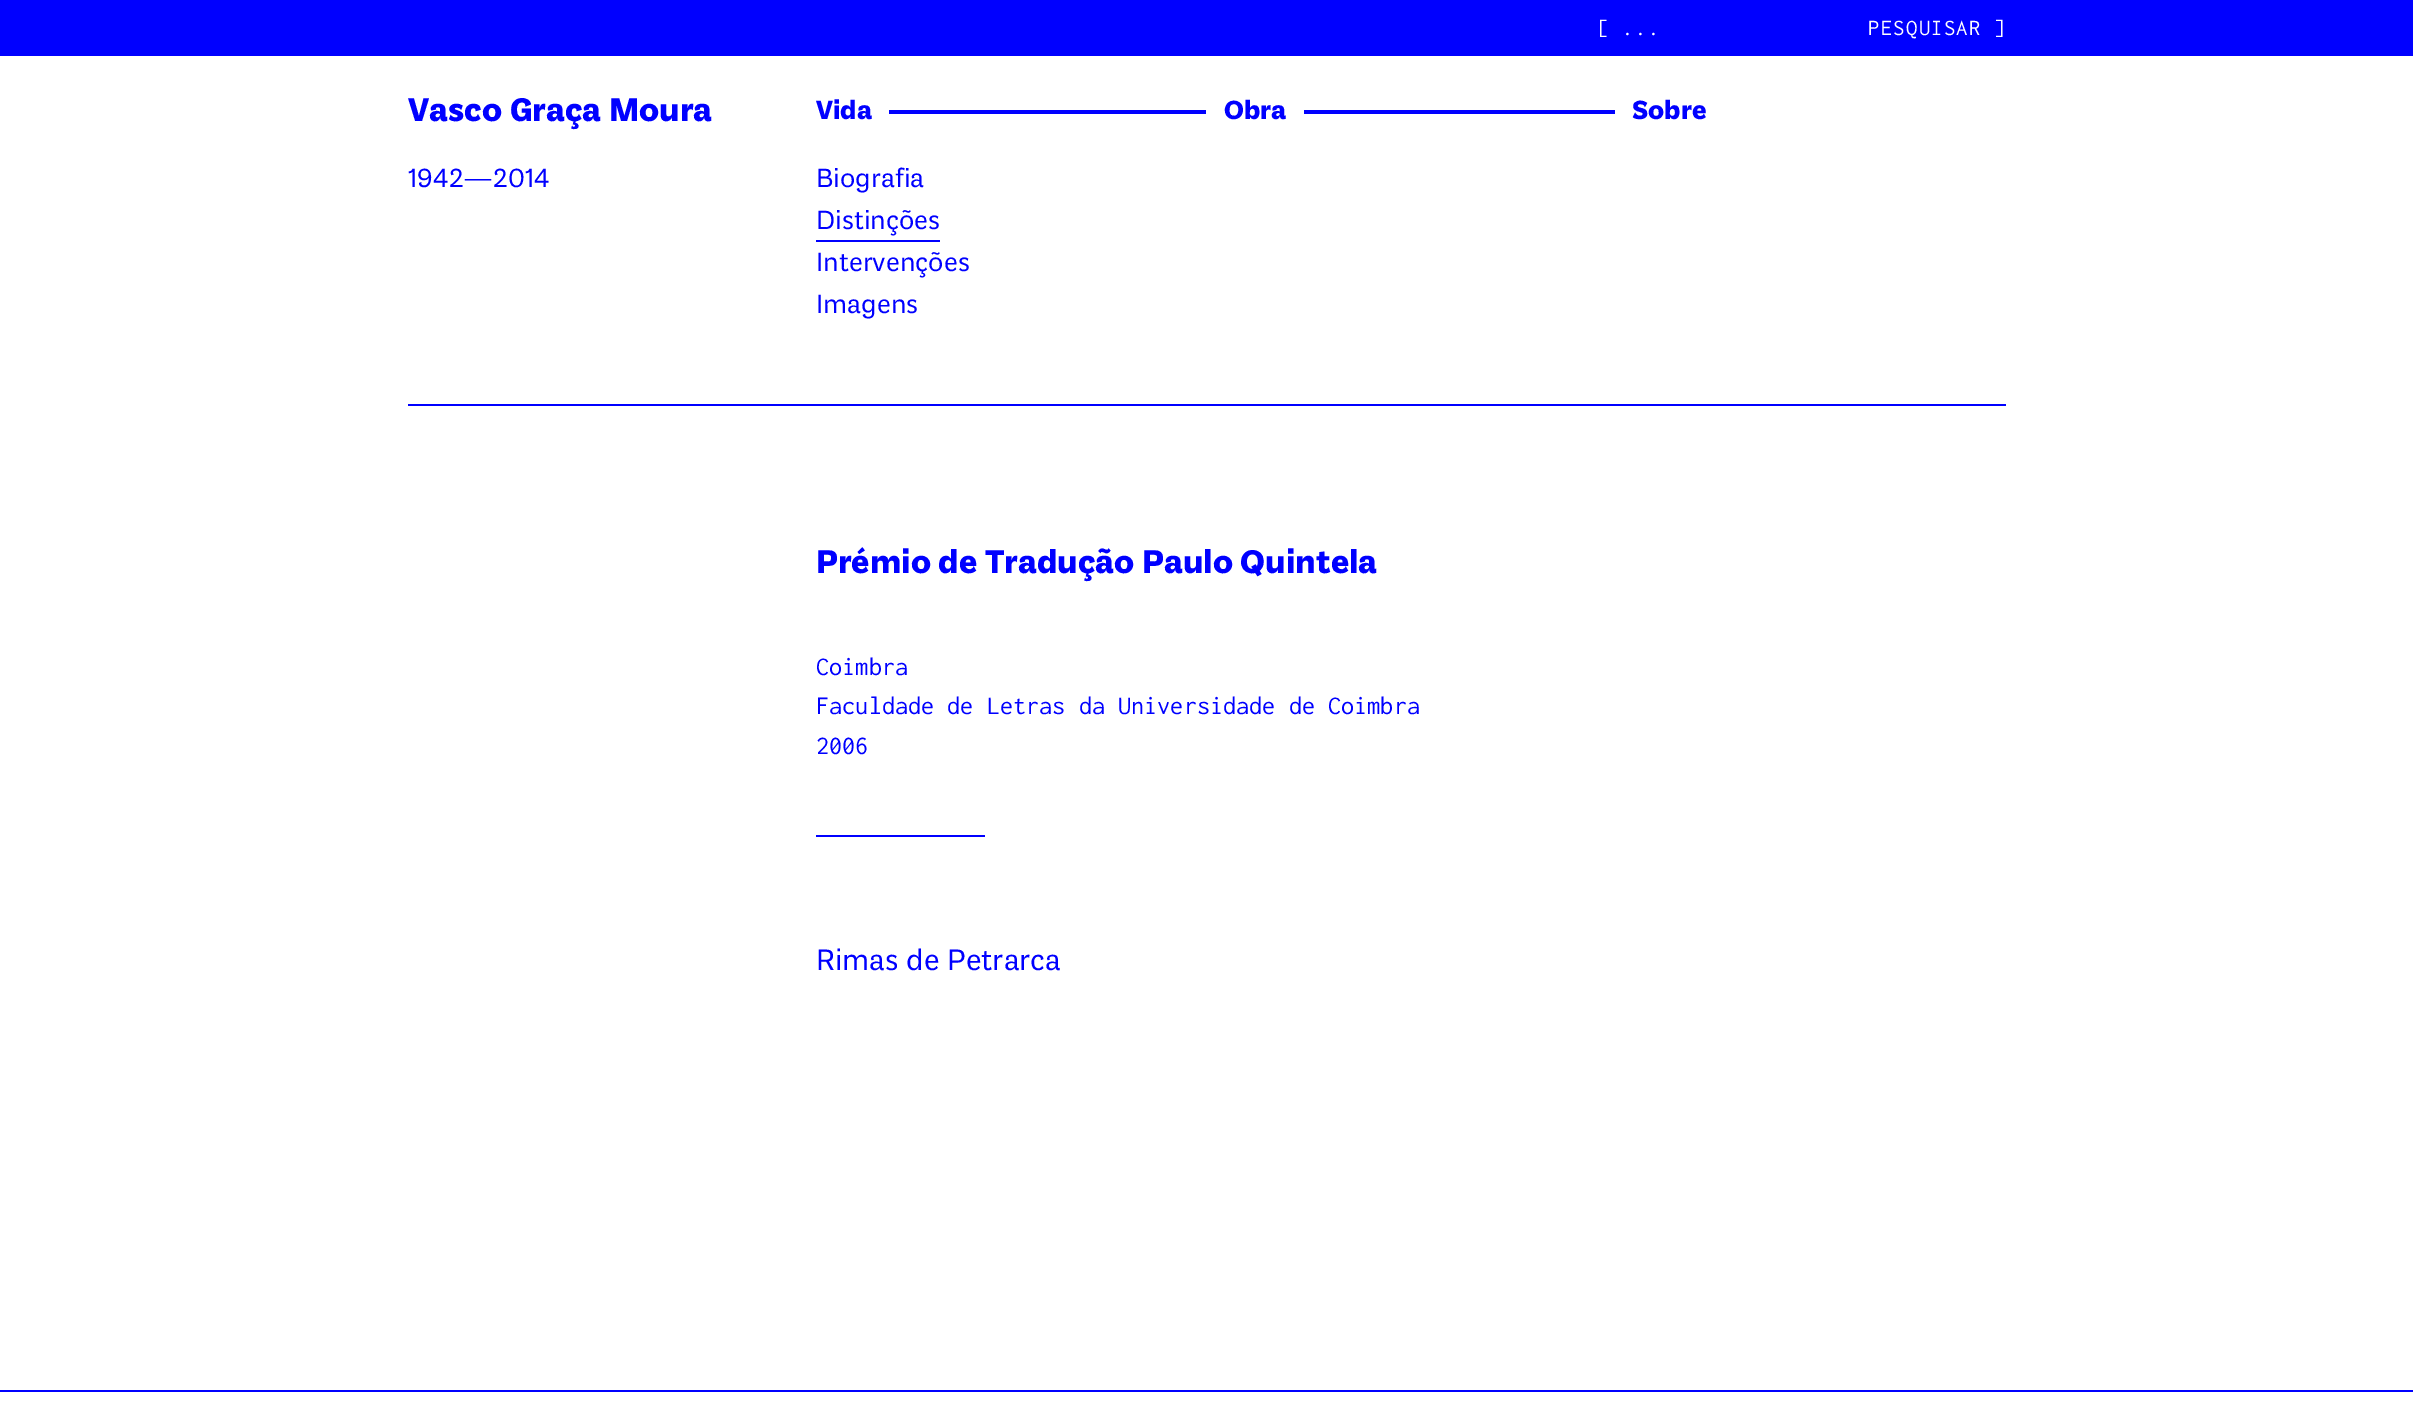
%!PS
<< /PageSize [2413 1409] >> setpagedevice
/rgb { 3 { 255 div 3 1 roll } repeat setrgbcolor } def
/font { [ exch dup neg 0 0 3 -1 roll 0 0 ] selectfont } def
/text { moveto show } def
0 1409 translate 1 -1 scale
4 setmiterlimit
255 255 255 rgb
0 0 2413 1409 rectfill
0 0 255 rgb
0 0 2413 56 rectfill
889 110 317 4 rectfill
816 240 124 2 rectfill
1304 110 311 4 rectfill
408 404 1598 2 rectfill
816 835 169 2 rectfill
0 1390 2413 2 rectfill
/Inconsolata-Regular 22.75 font
255 255 255 rgb
1597 35 moveto 1.25 0 ([ ...) ashow
1868 35 moveto 1.25 0 (PESQUISAR) ashow
1993 35 moveto 1.25 0 (]) ashow
/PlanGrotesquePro-Bold 35 font
0 0 255 rgb
(Vasco Graça Moura) 408 121 text
/PlanGrotesquePro-Regular 28 font
(1942—2014) 408 187 text
/PlanGrotesquePro-Bold 28 font
(Vida) 816 119 text
/PlanGrotesquePro-Regular 28 font
(Biografia) 816 187 text
(Distinções) 816 229 text
(Intervenções) 816 271 text
(Imagens) 816 313 text
/PlanGrotesquePro-Bold 28 font
(Obra) 1224 119 text
(Sobre) 1632 119 text
/PlanGrotesquePro-Bold 35 font
(Prémio de Tradução Paulo Quintela) 816 573 text
/Inconsolata-Regular 26.25 font
(Coimbra) 816 675 text
(Faculdade de Letras da Universidade de Coimbra) 816 714 text
(2006) 816 754 text
/PlanGrotesquePro-Regular 31.5 font
(Rimas de Petrarca) 816 970 text
showpage
